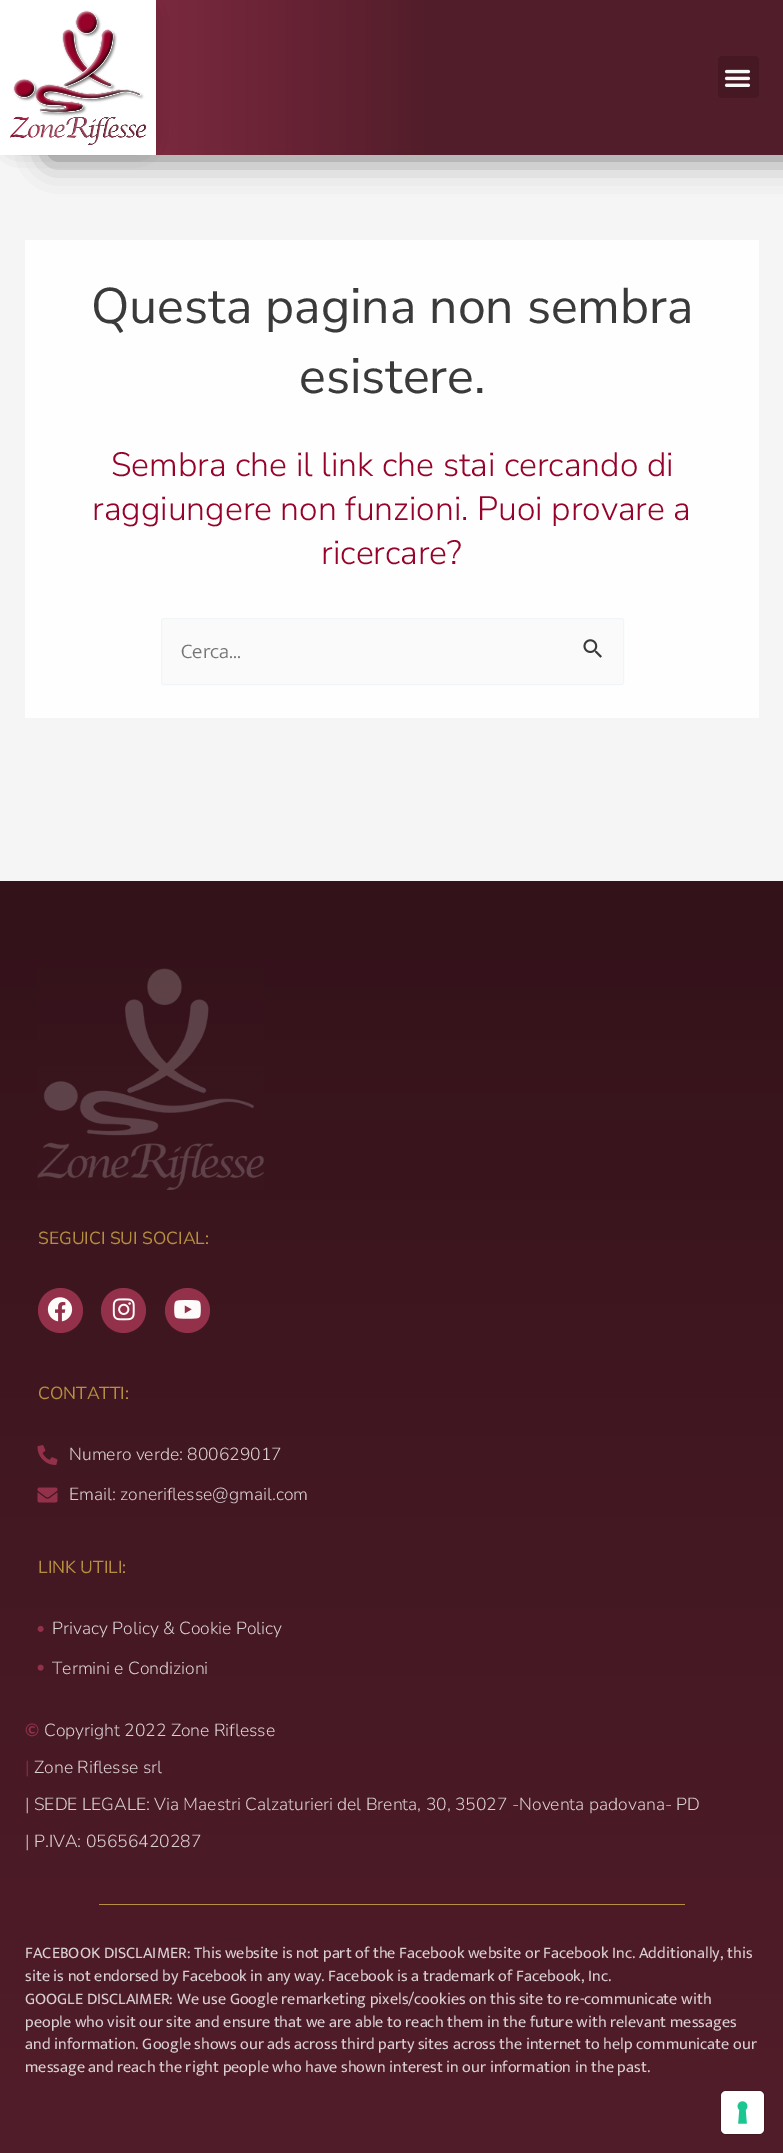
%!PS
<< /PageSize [783 2153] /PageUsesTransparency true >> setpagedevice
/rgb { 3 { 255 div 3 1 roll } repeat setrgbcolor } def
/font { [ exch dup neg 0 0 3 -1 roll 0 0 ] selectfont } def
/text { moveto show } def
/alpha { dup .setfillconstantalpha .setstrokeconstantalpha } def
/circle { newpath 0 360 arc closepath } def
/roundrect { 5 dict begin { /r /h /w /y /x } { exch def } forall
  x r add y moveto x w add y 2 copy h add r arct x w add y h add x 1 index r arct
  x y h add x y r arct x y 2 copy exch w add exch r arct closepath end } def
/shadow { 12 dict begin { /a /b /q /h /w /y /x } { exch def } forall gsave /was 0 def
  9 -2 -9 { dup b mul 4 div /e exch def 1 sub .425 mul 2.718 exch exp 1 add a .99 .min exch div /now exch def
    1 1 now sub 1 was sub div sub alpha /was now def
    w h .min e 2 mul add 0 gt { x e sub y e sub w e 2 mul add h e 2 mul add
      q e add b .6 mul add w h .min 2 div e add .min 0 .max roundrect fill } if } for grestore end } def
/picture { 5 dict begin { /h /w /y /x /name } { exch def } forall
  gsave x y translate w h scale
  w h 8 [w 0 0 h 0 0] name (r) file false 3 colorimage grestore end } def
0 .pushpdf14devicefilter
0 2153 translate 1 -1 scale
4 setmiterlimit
245 245 245 rgb
0 0 783 2153 rectfill
0 0 0 rgb
50 18 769 140 0 16 0.5 shadow
gsave 156 0 moveto 627 0 rlineto 0 155 rlineto -627 0 rlineto closepath clip newpath
<< /ShadingType 2 /ColorSpace /DeviceRGB /Coords [0 78 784 77] /Extend [true true] /Function << /FunctionType 3 /Domain [0 1] /Functions [<< /FunctionType 2 /Domain [0 1] /C0 [0.576 0.188 0.29] /C1 [0.322 0.114 0.165] /N 1 >> << /FunctionType 2 /Domain [0 1] /C0 [0.322 0.114 0.165] /C1 [0.322 0.114 0.165] /N 1 >>] /Bounds [0.55] /Encode [0 1 0 1] >> >> shfill grestore
27 9 9 rgb
15 15 126 125 0 12.5 0.65 shadow
255 255 255 rgb
0 0 156 155 rectfill
(img_01.rgb) 10 10 137 135 picture
69 24 35 rgb
718 56 41 42 4 roundrect fill
(img_02.rgb) 724 69 27 18 picture
254 254 254 rgb
25 240 734 478 rectfill
250 250 250 rgb
161.5 618.5 462 66 2 roundrect gsave fill grestore
242 245 247 rgb
stroke
(img_03.rgb) 583 639 19 19 picture
gsave 0 881 moveto 783 0 rlineto 0 1272 rlineto -783 0 rlineto closepath clip newpath
<< /ShadingType 2 /ColorSpace /DeviceRGB /Coords [392 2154 392 881] /Extend [true true] /Function << /FunctionType 2 /Domain [0 1] /C0 [0.322 0.114 0.165] /C1 [0.2 0.071 0.102] /N 1 >> >> shfill grestore
(img_04.rgb) 37 968 227 222 picture
147 48 74 rgb
60.5 1310.5 22.5 circle fill
(img_05.rgb) 47 1297 26 25 picture
123.5 1310.5 22.5 circle fill
(img_06.rgb) 112 1298 23 23 picture
187.5 1310.5 22.5 circle fill
(img_07.rgb) 174 1300 27 19 picture
(img_08.rgb) 37 1445 21 20 picture
(img_09.rgb) 37 1487 21 16 picture
(img_10.rgb) 37 1625 7 7 picture
(img_11.rgb) 37 1664 7 7 picture
182 143 64 rgb
99 1904 586 1 rectfill
69 24 35 rgb
720.5 2090.5 44 44 5.5 roundrect stroke
255 255 255 rgb
721 2091 43 43 5 roundrect fill
(img_12.rgb) 737 2101 11 23 picture
/NunitoSans-Regular 50 font
58 58 58 rgb
(Questa pagina non sembra) 91 323 text
(esistere.) 299 393 text
/NunitoSans-Light 33.75 font
150 2 41 rgb
(Sembra che il link che stai cercando di) 111 476 text
(raggiungere non funzioni. Puoi provare a) 92 520 text
(ricercare?) 321 564 text
/MuktaVaani-Light 21 font
117 117 117 rgb
(Cerca...) 181 658 text
/NunitoSans-Regular 17.5 font
182 143 64 rgb
(SEGUICI SUI SOCIAL:) 38 1244 text
(CONTATTI:) 38 1399 text
/NunitoSans-Light 17.5 font
217 207 210 rgb
(Numero verde: 800629017) 69 1460 text
(Email: zoneriflesse@gmail.com) 69 1500 text
/NunitoSans-Regular 17.5 font
182 143 64 rgb
(LINK UTILI:) 38 1573 text
/NunitoSans-Light 17.5 font
217 207 210 rgb
(Privacy Policy & Cookie Policy) 52 1634 text
(Termini e Condizioni) 52 1674 text
/NunitoSans-Bold 17.5 font
147 48 74 rgb
(©) 25 1736 text
/NunitoSans-Light 17.5 font
217 207 210 rgb
(Copyright 2022 Zone Riflesse) 44 1736 text
147 48 74 rgb
(|) 25 1773 text
217 207 210 rgb
(Zone Riflesse srl) 34 1773 text
(| SEDE LEGALE: Via Maestri Calzaturieri del Brenta, 30, 35027 -Noventa padovana- PD) 25 1810 text
(| P.IVA: 05656420287) 25 1847 text
/MuktaVaani-Regular 16.25 font
(FACEBOOK DISCLAIMER: This website is not part of the Facebook website or Facebook Inc. Additionally, this) 25 1958 text
(site is not endorsed by Facebook in any way. Facebook is a trademark of Facebook, Inc.) 25 1981 text
(GOOGLE DISCLAIMER: We use Google remarketing pixels/cookies on this site to re-communicate with) 25 2004 text
(people who visit our site and ensure that we are able to reach them in the future with relevant messages) 25 2027 text
(and information. Google shows our ads across third party sites across the internet to help communicate our) 25 2049 text
(message and reach the right people who have shown interest in our information in the past.) 25 2072 text
.poppdf14devicefilter showpage
